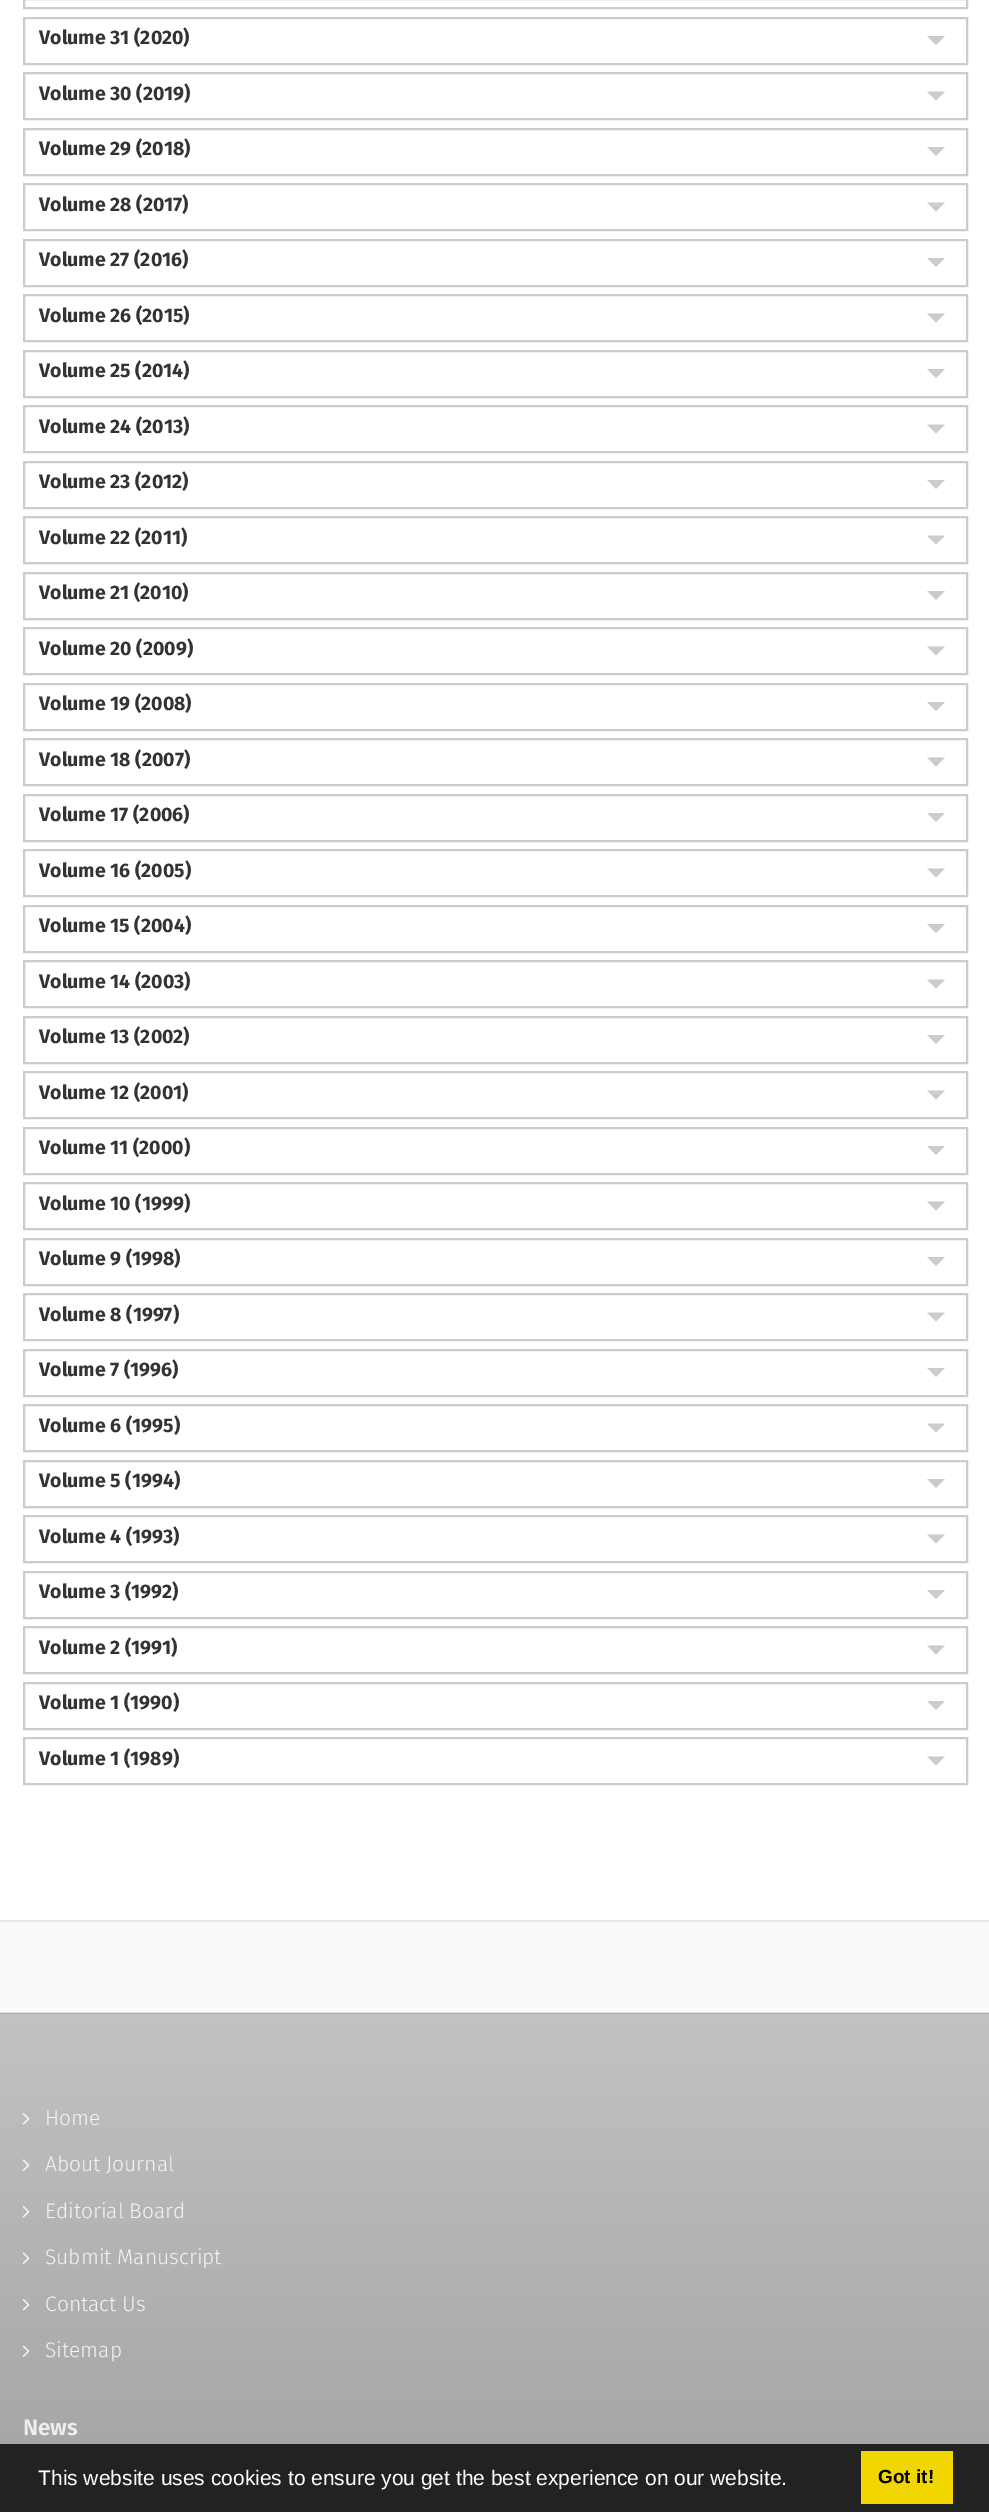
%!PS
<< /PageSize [989 2512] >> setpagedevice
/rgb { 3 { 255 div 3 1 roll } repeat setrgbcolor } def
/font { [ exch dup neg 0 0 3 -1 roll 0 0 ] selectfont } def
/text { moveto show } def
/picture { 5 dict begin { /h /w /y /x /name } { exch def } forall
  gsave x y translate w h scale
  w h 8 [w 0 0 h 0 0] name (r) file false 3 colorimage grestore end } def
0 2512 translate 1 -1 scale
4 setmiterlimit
255 255 255 rgb
0 0 989 2512 rectfill
230 230 230 rgb
0 1920 989 2 rectfill
204 204 204 rgb
2 setlinewidth
24 -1 943 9 rectstroke
24 18 943 46 rectstroke
927 36 moveto 18 0 rlineto -9 9 rlineto closepath fill
24 73 943 46 rectstroke
927 91.5 moveto 18 0 rlineto -9 9 rlineto closepath fill
24 129 943 46 rectstroke
927 147 moveto 18 0 rlineto -9 9 rlineto closepath fill
24 184 943 46 rectstroke
927 202.5 moveto 18 0 rlineto -9 9 rlineto closepath fill
24 240 943 46 rectstroke
927 258 moveto 18 0 rlineto -9 9 rlineto closepath fill
24 295 943 46 rectstroke
927 313.5 moveto 18 0 rlineto -9 9 rlineto closepath fill
24 351 943 46 rectstroke
927 369 moveto 18 0 rlineto -9 9 rlineto closepath fill
24 406 943 46 rectstroke
927 424.5 moveto 18 0 rlineto -9 9 rlineto closepath fill
24 462 943 46 rectstroke
927 480 moveto 18 0 rlineto -9 9 rlineto closepath fill
24 517 943 46 rectstroke
927 535.5 moveto 18 0 rlineto -9 9 rlineto closepath fill
24 573 943 46 rectstroke
927 591 moveto 18 0 rlineto -9 9 rlineto closepath fill
24 628 943 46 rectstroke
927 646.5 moveto 18 0 rlineto -9 9 rlineto closepath fill
24 684 943 46 rectstroke
927 702 moveto 18 0 rlineto -9 9 rlineto closepath fill
24 739 943 46 rectstroke
927 757.5 moveto 18 0 rlineto -9 9 rlineto closepath fill
24 795 943 46 rectstroke
927 813 moveto 18 0 rlineto -9 9 rlineto closepath fill
24 850 943 46 rectstroke
927 868.5 moveto 18 0 rlineto -9 9 rlineto closepath fill
24 906 943 46 rectstroke
927 924 moveto 18 0 rlineto -9 9 rlineto closepath fill
24 961 943 46 rectstroke
927 979.5 moveto 18 0 rlineto -9 9 rlineto closepath fill
24 1017 943 46 rectstroke
927 1035 moveto 18 0 rlineto -9 9 rlineto closepath fill
24 1072 943 46 rectstroke
927 1090.5 moveto 18 0 rlineto -9 9 rlineto closepath fill
24 1128 943 46 rectstroke
927 1146 moveto 18 0 rlineto -9 9 rlineto closepath fill
24 1183 943 46 rectstroke
927 1201.5 moveto 18 0 rlineto -9 9 rlineto closepath fill
24 1239 943 46 rectstroke
927 1257 moveto 18 0 rlineto -9 9 rlineto closepath fill
24 1294 943 46 rectstroke
927 1312.5 moveto 18 0 rlineto -9 9 rlineto closepath fill
24 1350 943 46 rectstroke
927 1368 moveto 18 0 rlineto -9 9 rlineto closepath fill
24 1405 943 46 rectstroke
927 1423.5 moveto 18 0 rlineto -9 9 rlineto closepath fill
24 1461 943 46 rectstroke
927 1479 moveto 18 0 rlineto -9 9 rlineto closepath fill
24 1516 943 46 rectstroke
927 1534.5 moveto 18 0 rlineto -9 9 rlineto closepath fill
24 1572 943 46 rectstroke
927 1590 moveto 18 0 rlineto -9 9 rlineto closepath fill
24 1627 943 46 rectstroke
927 1645.5 moveto 18 0 rlineto -9 9 rlineto closepath fill
24 1683 943 46 rectstroke
927 1701 moveto 18 0 rlineto -9 9 rlineto closepath fill
24 1738 943 46 rectstroke
927 1756.5 moveto 18 0 rlineto -9 9 rlineto closepath fill
250 250 250 rgb
0 1922 989 90 rectfill
225 225 225 rgb
0 2012 989 1 rectfill
gsave 0 2014 moveto 989 0 rlineto 0 430 rlineto -989 0 rlineto closepath clip newpath
<< /ShadingType 2 /ColorSpace /DeviceRGB /Coords [495 2013 495 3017] /Extend [true true] /Function << /FunctionType 2 /Domain [0 1] /C0 [0.761 0.761 0.761] /C1 [0.518 0.518 0.518] /N 1 >> >> shfill grestore
gsave 0 2013 moveto 989 0 rlineto 0 1 rlineto -989 0 rlineto closepath clip newpath
<< /ShadingType 2 /ColorSpace /DeviceRGB /Coords [495 2013 495 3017] /Extend [true true] /Function << /FunctionType 2 /Domain [0 1] /C0 [0.686 0.686 0.686] /C1 [0.467 0.467 0.467] /N 1 >> >> shfill grestore
(img_01.rgb) 22 2113 8 12 picture
(img_02.rgb) 22 2159 8 12 picture
(img_03.rgb) 22 2206 8 12 picture
(img_04.rgb) 22 2252 8 12 picture
(img_05.rgb) 22 2299 8 12 picture
(img_06.rgb) 22 2345 8 12 picture
34 34 34 rgb
0 2444 989 68 rectfill
241 214 0 rgb
861 2451 92 53 rectfill
/FiraSans-Bold 19.5 font
51 51 51 rgb
(Volume 31 \(2020\)) 39 44 text
(Volume 30 \(2019\)) 39 100 text
(Volume 29 \(2018\)) 39 155 text
(Volume 28 \(2017\)) 39 211 text
(Volume 27 \(2016\)) 39 266 text
(Volume 26 \(2015\)) 39 322 text
(Volume 25 \(2014\)) 39 377 text
(Volume 24 \(2013\)) 39 433 text
(Volume 23 \(2012\)) 39 488 text
(Volume 22 \(2011\)) 39 544 text
(Volume 21 \(2010\)) 39 599 text
(Volume 20 \(2009\)) 39 655 text
(Volume 19 \(2008\)) 39 710 text
(Volume 18 \(2007\)) 39 766 text
(Volume 17 \(2006\)) 39 821 text
(Volume 16 \(2005\)) 39 877 text
(Volume 15 \(2004\)) 39 932 text
(Volume 14 \(2003\)) 39 988 text
(Volume 13 \(2002\)) 39 1043 text
(Volume 12 \(2001\)) 39 1099 text
(Volume 11 \(2000\)) 39 1154 text
(Volume 10 \(1999\)) 39 1210 text
(Volume 9 \(1998\)) 39 1265 text
(Volume 8 \(1997\)) 39 1321 text
(Volume 7 \(1996\)) 39 1376 text
(Volume 6 \(1995\)) 39 1432 text
(Volume 5 \(1994\)) 39 1487 text
(Volume 4 \(1993\)) 39 1543 text
(Volume 3 \(1992\)) 39 1598 text
(Volume 2 \(1991\)) 39 1654 text
(Volume 1 \(1990\)) 39 1709 text
(Volume 1 \(1989\)) 39 1765 text
/FiraSans-Light 21 font
245 245 245 rgb
(Home) 45 2125 text
(About Journal) 45 2171 text
(Editorial Board) 45 2218 text
(Submit Manuscript) 45 2264 text
(Contact Us) 45 2311 text
(Sitemap) 45 2357 text
/FiraSans-SemiBold 22.5 font
238 238 238 rgb
(News) 23 2435 text
/LiberationSans-Regular 21 font
255 255 255 rgb
(This website uses cookies to ensure you get the best experience on our website.) 38 2485 text
/LiberationSans-Bold 19 font
0 0 0 rgb
(Got it!) 878 2483 text
showpage
